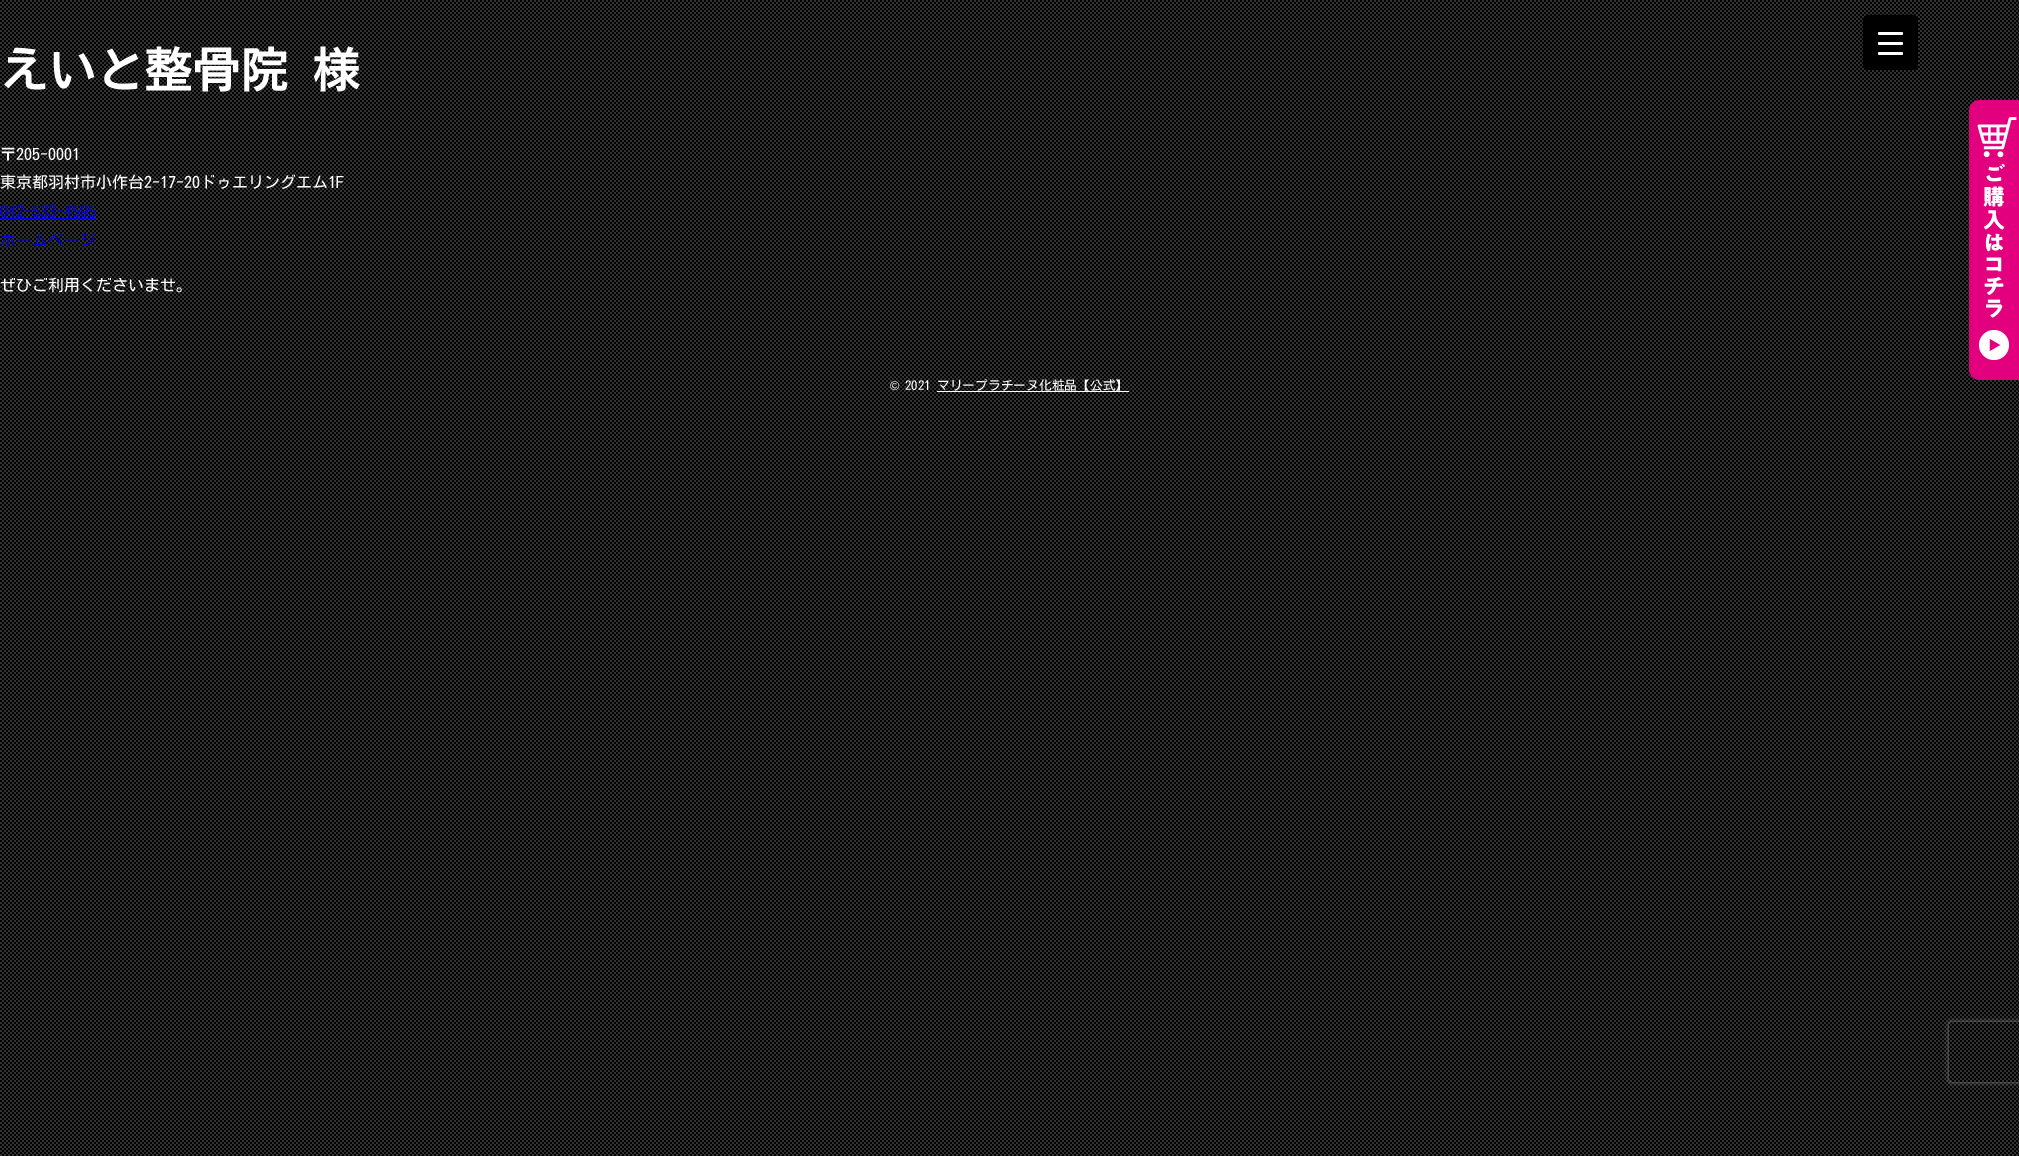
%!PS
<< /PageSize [2019 1156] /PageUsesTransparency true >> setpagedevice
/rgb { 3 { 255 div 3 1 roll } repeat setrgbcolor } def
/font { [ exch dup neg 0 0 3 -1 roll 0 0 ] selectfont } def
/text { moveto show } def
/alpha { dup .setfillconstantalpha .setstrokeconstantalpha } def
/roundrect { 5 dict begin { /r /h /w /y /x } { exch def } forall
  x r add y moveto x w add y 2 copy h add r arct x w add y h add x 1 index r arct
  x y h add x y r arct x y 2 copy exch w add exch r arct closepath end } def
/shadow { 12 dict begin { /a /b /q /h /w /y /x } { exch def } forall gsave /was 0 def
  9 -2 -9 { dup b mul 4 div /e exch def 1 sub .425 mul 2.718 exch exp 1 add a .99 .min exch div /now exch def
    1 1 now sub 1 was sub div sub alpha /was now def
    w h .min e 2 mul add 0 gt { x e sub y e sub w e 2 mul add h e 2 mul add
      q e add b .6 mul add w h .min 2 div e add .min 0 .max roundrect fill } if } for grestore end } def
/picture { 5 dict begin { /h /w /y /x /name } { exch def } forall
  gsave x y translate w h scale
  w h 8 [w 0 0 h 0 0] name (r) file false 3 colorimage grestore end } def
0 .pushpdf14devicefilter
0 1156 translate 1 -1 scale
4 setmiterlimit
255 255 255 rgb
0 0 2019 1156 rectfill
(img_01.rgb) 0 0 2019 1156 picture
0 0 238 rgb
0 218 96 1 rectfill
0 247 96 1 rectfill
0 0 0 rgb
1863 15 55 55 5 roundrect fill
255 255 255 rgb
1878 42 25 3 1.5 roundrect fill
1878 32 25 3 1.5 roundrect fill
1878 52 25 3 1.5 roundrect fill
(img_02.rgb) 1969 100 50 280 picture
937 391 192 1 rectfill
gsave
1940 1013 moveto 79 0 rlineto 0 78 rlineto -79 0 rlineto closepath 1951 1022 moveto 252 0 rlineto 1 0 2 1 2 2 rcurveto 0 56 rlineto 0 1 -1 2 -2 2 rcurveto -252 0 rlineto -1 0 -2 -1 -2 -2 rcurveto 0 -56 rlineto 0 -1 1 -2 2 -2 rcurveto closepath eoclip newpath
128 128 128 rgb
1949 1022 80 60 2 2.5 1 shadow
grestore
/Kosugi-Bold 48 font
(えいと整骨院 様) 0 88 text
/Kosugi-Regular 16 font
(〒205-0001) 0 160 text
(東京都羽村市小作台2-17-20ドゥエリングエム1F) 0 188 text
0 0 238 rgb
(042-533-4595) 0 217 text
(ホームページ) 0 246 text
255 255 255 rgb
(ぜひご利用くださいませ。) 0 291 text
/LiberationSans-Regular 12.75 font
(©) 890 390 text
/Kosugi-Regular 12.75 font
(2021 マリープラチーヌ化粧品【公式】) 905 390 text
.poppdf14devicefilter showpage
